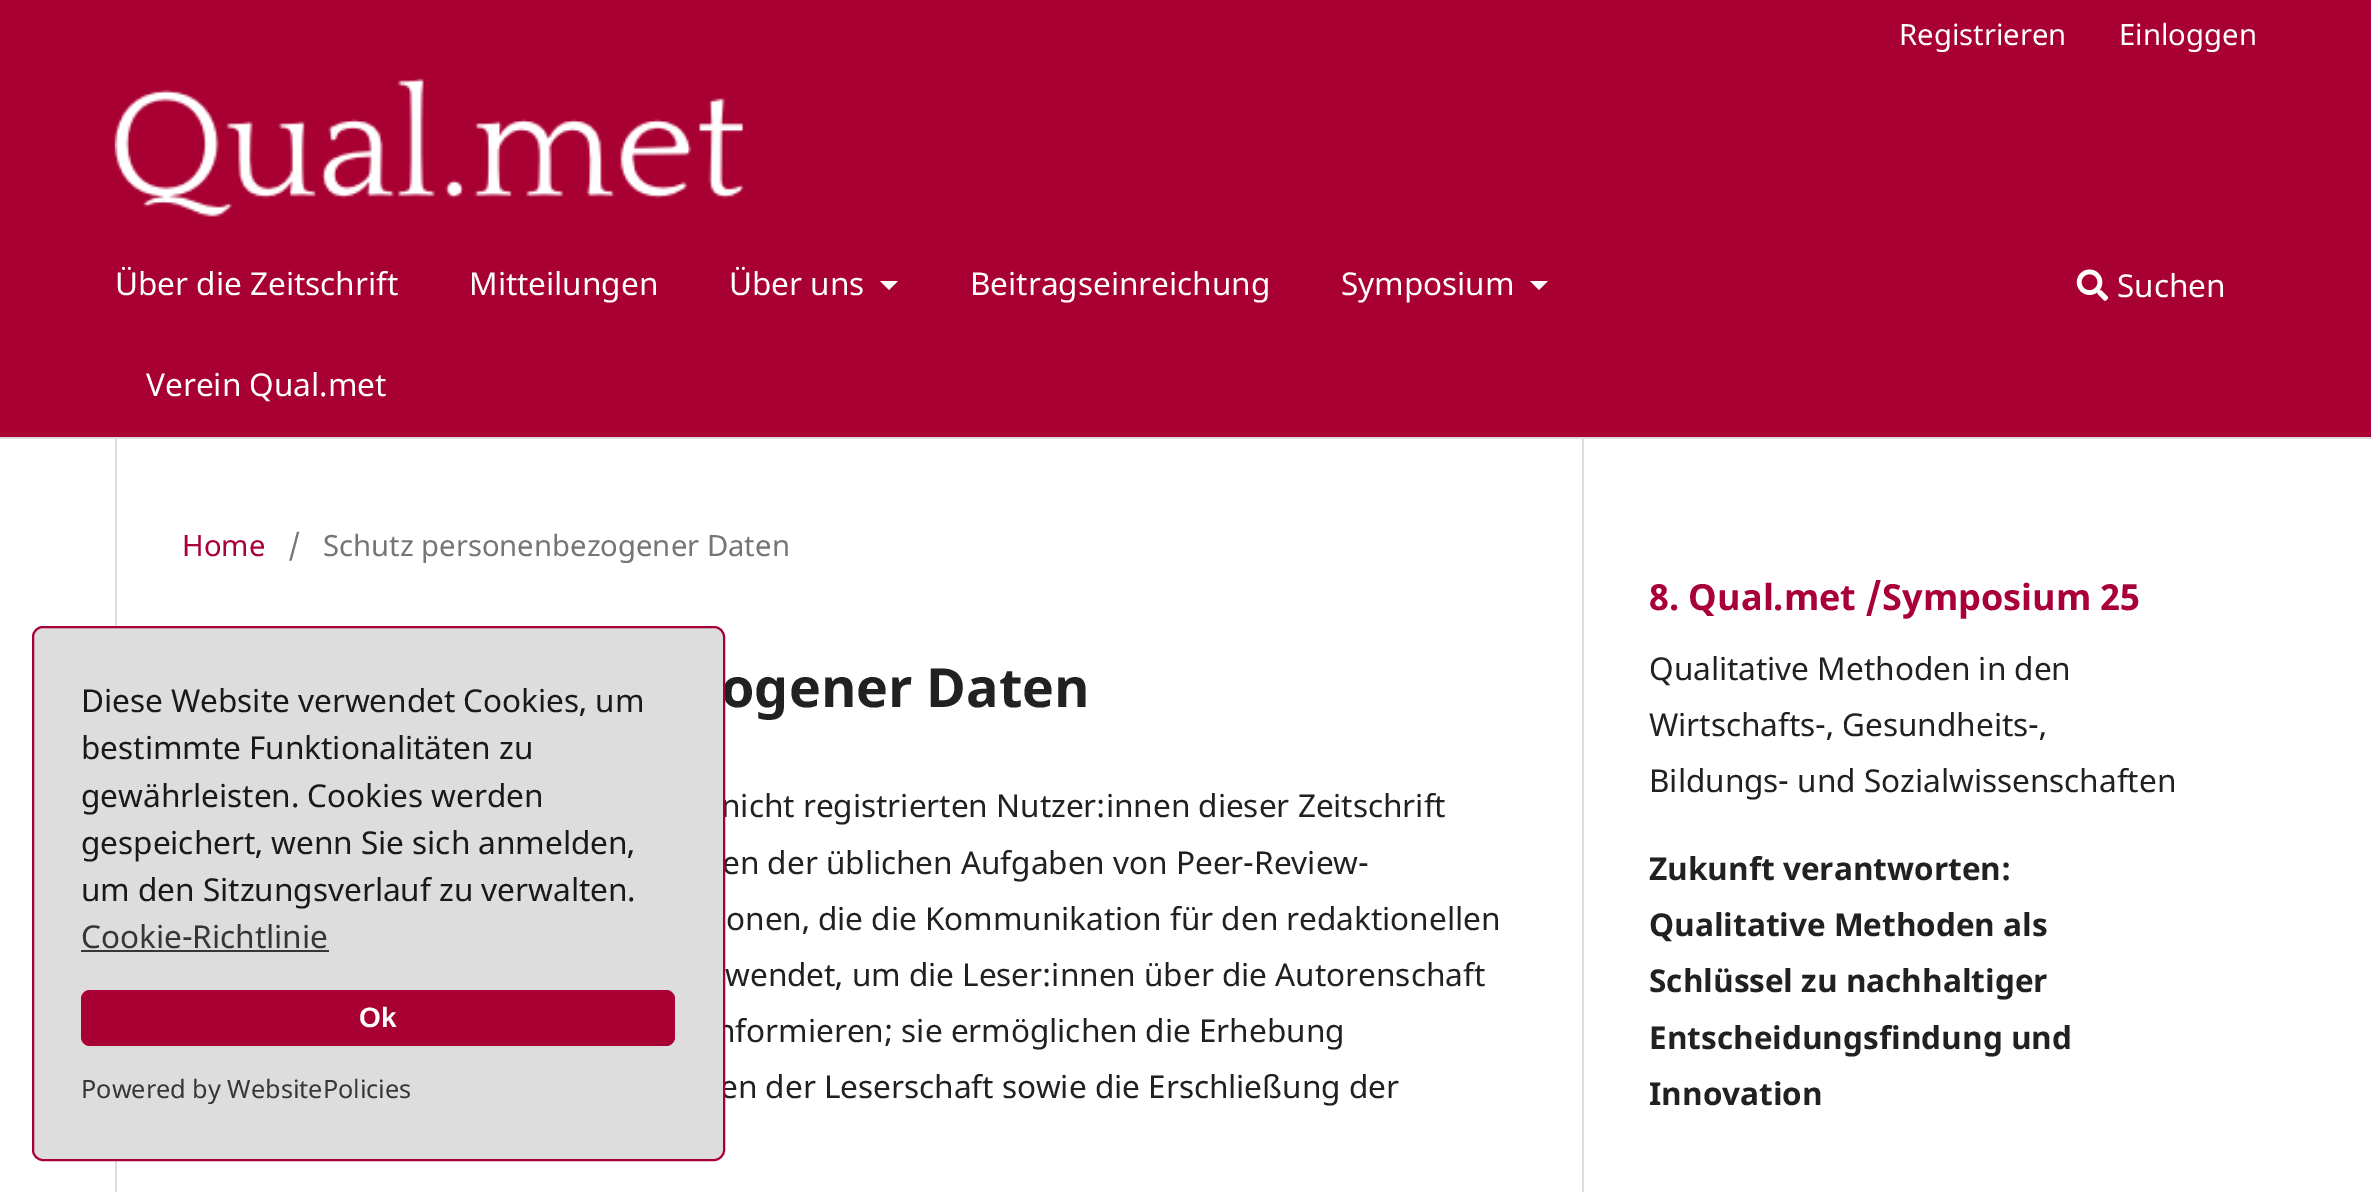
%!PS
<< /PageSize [2371 1192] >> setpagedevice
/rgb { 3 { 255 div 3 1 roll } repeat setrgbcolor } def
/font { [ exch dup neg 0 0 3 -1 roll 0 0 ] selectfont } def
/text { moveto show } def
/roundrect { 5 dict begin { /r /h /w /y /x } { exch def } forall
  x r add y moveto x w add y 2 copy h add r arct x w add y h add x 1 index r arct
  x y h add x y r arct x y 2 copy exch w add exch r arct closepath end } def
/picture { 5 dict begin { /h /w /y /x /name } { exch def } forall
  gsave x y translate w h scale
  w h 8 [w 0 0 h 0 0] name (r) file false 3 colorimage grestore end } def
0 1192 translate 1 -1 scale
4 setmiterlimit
255 255 255 rgb
0 0 2371 1192 rectfill
169 0 51 rgb
0 0 2371 437 rectfill
221 221 221 rgb
0 437 2371 2 rectfill
255 255 255 rgb
880 281 moveto 18 0 rlineto -9 9 rlineto closepath fill
1530 281 moveto 18 0 rlineto -9 9 rlineto closepath fill
(img_01.rgb) 2076 269 33 32 picture
(img_02.rgb) 114 78 630 139 picture
221 221 221 rgb
115 439 2 753 rectfill
1582 439 2 753 rectfill
/NotoSans-Regular 29.25 font
255 255 255 rgb
(Registrieren) 1899 45 text
(Einloggen) 2119 45 text
/NotoSans-Regular 31.5 font
(Über die Zeitschrift) 115 295 text
(Mitteilungen) 469 295 text
(Über uns) 729 295 text
(Beitragseinreichung) 970 295 text
(Symposium) 1341 295 text
(Verein Qual.met) 146 396 text
(Suchen) 2117 297 text
/NotoSans-Regular 29.25 font
169 0 57 rgb
(Home) 182 556 text
117 117 117 rgb
(/) 288 556 text
(Schutz personenbezogener Daten) 323 556 text
/NotoSans-Bold 54 font
33 33 33 rgb
(ogener Daten) 721 707 text
/NotoSans-Regular 31.5 font
(nicht registrierten Nutzer:innen dieser Zeitschrift) 721 817 text
(en der üblichen Aufgaben von Peer-Review-) 722 874 text
(onen, die die Kommunikation für den redaktionellen) 726 930 text
(wendet, um die Leser:innen über die Autorenschaft) 725 986 text
(nformieren; sie ermöglichen die Erhebung) 716 1042 text
(en der Leserschaft sowie die Erschließung der) 720 1098 text
/NotoSans-Bold 36 font
169 0 57 rgb
(8. Qual.met /Symposium 25) 1649 610 text
/NotoSans-Regular 31.5 font
33 33 33 rgb
(Qualitative Methoden in den) 1649 680 text
(Wirtschafts-, Gesundheits-,) 1649 736 text
(Bildungs- und Sozialwissenschaften) 1649 792 text
/NotoSans-Bold 31.5 font
(Zukunft verantworten:) 1649 880 text
(Qualitative Methoden als) 1649 936 text
(Schlüssel zu nachhaltiger) 1649 992 text
(Entscheidungsfindung und) 1649 1049 text
(Innovation) 1649 1105 text
221 221 221 rgb
33 627 691 533 10 roundrect gsave fill grestore
169 0 51 rgb
2 setlinewidth
stroke
/NotoSans-Regular 31.5 font
25 25 25 rgb
(Diese Website verwendet Cookies, um) 81 712 text
(bestimmte Funktionalitäten zu) 81 759 text
(gewährleisten. Cookies werden) 81 807 text
(gespeichert, wenn Sie sich anmelden,) 81 854 text
(um den Sitzungsverlauf zu verwalten.) 81 901 text
54 54 54 rgb
(Cookie-Richtlinie) 81 948 text
81 950 248 2 rectfill
169 0 51 rgb
81 990 594 56 9 roundrect fill
/LiberationSans-Bold 28 font
255 255 255 rgb
(Ok) 359 1027 text
/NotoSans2-Regular 25.25 font
54 54 54 rgb
(Powered by WebsitePolicies) 81 1098 text
showpage
